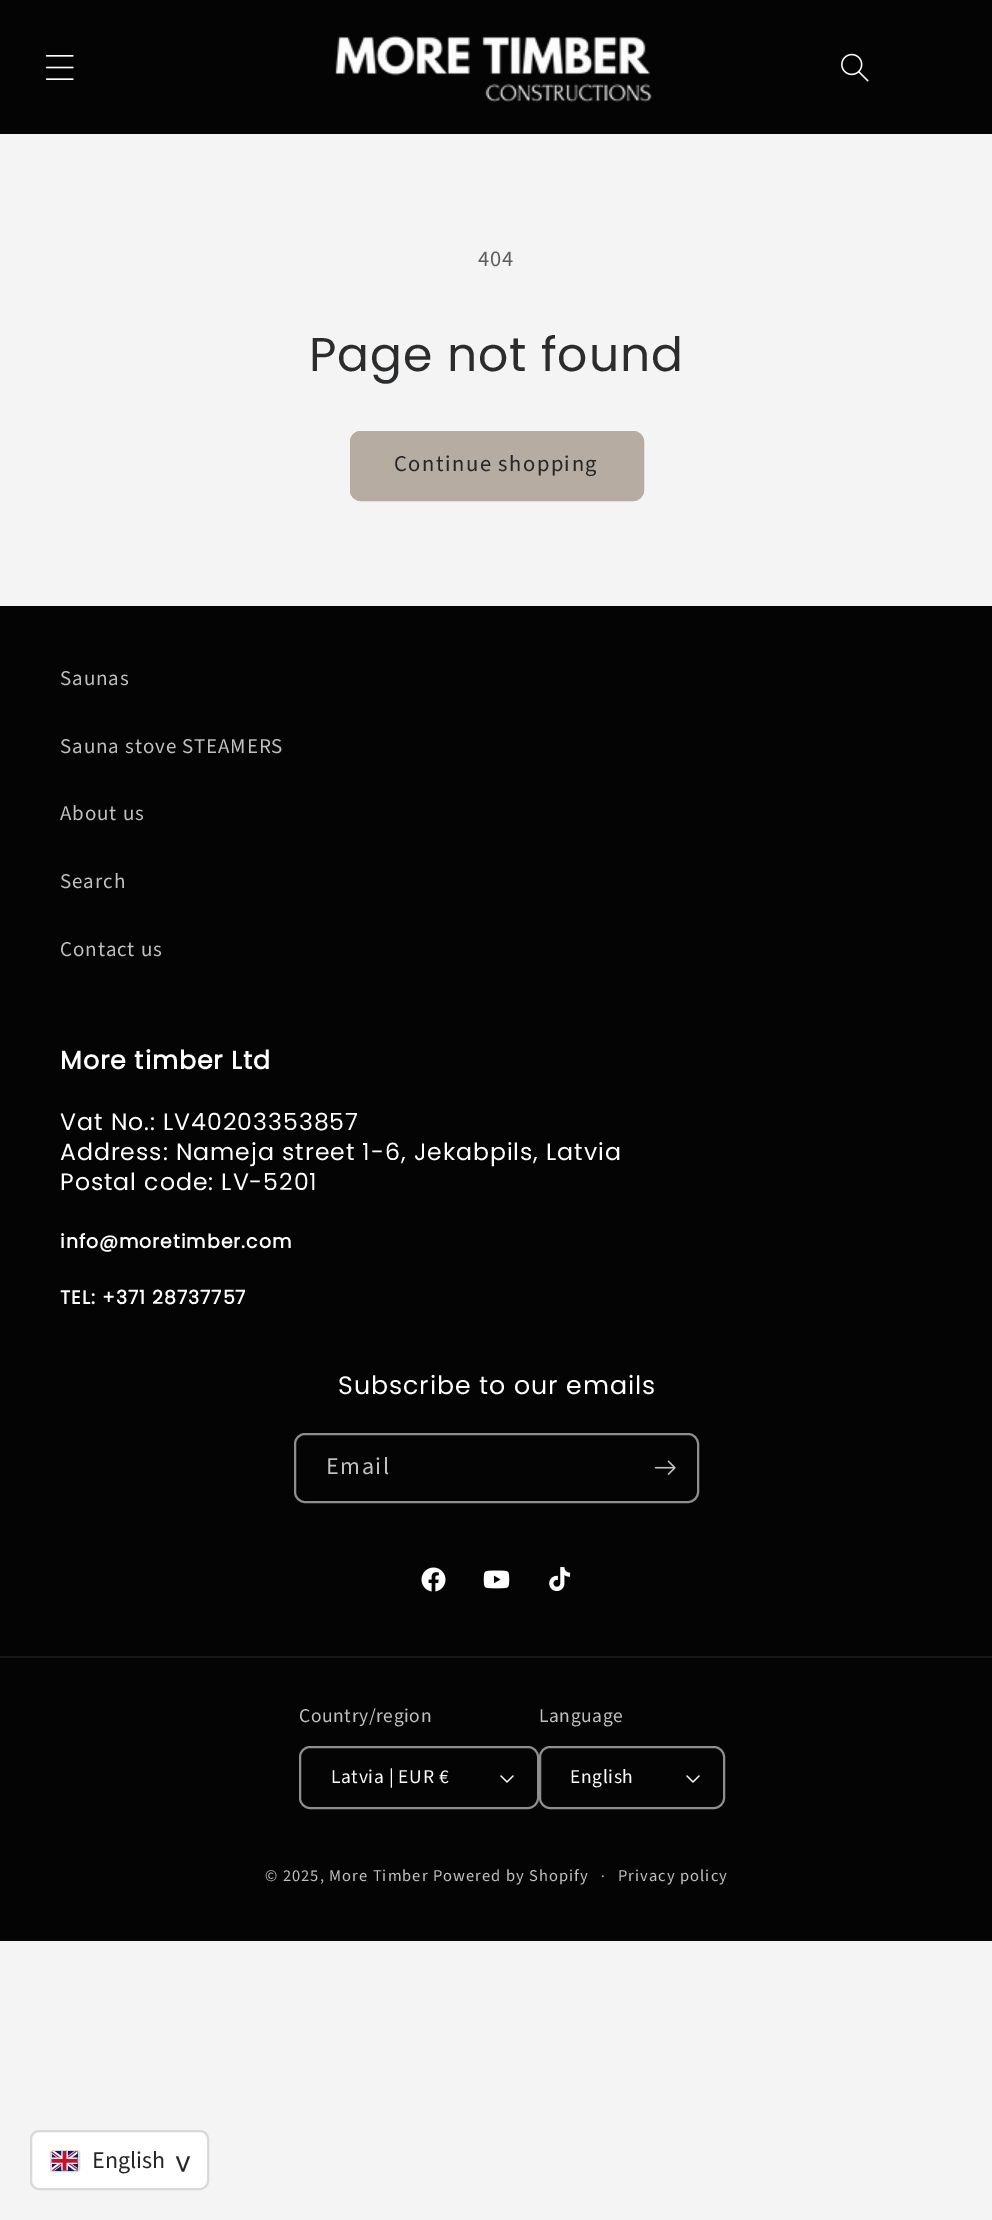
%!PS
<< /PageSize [992 2220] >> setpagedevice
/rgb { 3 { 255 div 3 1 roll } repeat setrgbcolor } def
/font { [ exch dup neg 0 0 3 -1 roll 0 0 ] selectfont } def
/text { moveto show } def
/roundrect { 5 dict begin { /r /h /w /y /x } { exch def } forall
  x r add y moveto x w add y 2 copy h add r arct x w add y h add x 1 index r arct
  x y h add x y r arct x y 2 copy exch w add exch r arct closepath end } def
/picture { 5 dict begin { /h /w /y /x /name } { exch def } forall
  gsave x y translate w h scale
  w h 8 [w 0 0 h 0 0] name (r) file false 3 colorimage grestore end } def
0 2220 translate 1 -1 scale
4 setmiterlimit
244 244 244 rgb
0 0 992 2220 rectfill
4 4 4 rgb
0 0 992 134 rectfill
(img_01.rgb) 45 55 29 25 picture
(img_02.rgb) 335 35 317 68 picture
(img_03.rgb) 841 53 28 29 picture
183 172 162 rgb
350 431 294 70 11 roundrect fill
2 setlinewidth
351 432 292 68 10 roundrect stroke
4 4 4 rgb
0 606 992 1335 rectfill
142 142 142 rgb
295 1434 403 68 10 roundrect stroke
(img_04.rgb) 654 1460 22 15 picture
(img_05.rgb) 421 1567 25 25 picture
(img_06.rgb) 483 1570 27 19 picture
(img_07.rgb) 549 1567 22 25 picture
24 24 24 rgb
0 1656 992 2 rectfill
(img_08.rgb) 500 1775 14 8 picture
142 142 142 rgb
300 1747 238 61 10 roundrect stroke
(img_08.rgb) 686 1775 14 8 picture
540 1747 184 61 10 roundrect stroke
255 255 255 rgb
31 2131 177 58 8 roundrect gsave fill grestore
217 217 217 rgb
stroke
51 2151 28 20 2 roundrect stroke
(img_09.rgb) 51 2151 27 20 picture
/SourceSansPro-Regular 22.5 font
93 94 95 rgb
478 266 moveto 0.9 0 (404) ashow
/Poppins-Regular 47.25 font
43 44 45 rgb
309 371 moveto 0.95 0 (Page not found) ashow
/SourceSansPro-Regular 22.5 font
38 38 38 rgb
394 471 moveto 1.5 0 (Continue shopping) ashow
/SourceSansPro-Regular 21 font
192 192 192 rgb
60 685 moveto 0.9 0 (Saunas) ashow
60 753 moveto 0.9 0 (Sauna stove STEAMERS) ashow
60 820 moveto 0.9 0 (About us) ashow
60 888 moveto 0.9 0 (Search) ashow
60 956 moveto 0.9 0 (Contact us) ashow
/Poppins-Bold 25.25 font
255 255 255 rgb
60 1069 moveto 0.95 0 (More timber Ltd) ashow
/Poppins-Regular 23.6 font
60 1130 moveto 0.95 0 (Vat No.: LV40203353857) ashow
60 1160 moveto 0.95 0 (Address: Nameja street 1-6, Jekabpils, Latvia) ashow
60 1190 moveto 0.95 0 (Postal code: LV-5201) ashow
/Poppins-Bold 18.9 font
60 1248 moveto 0.95 0 (info@moretimber.com) ashow
60 1304 moveto 0.95 0 (TEL: +371 28737757) ashow
/Poppins-Regular 25.25 font
338 1394 moveto 0.95 0 (Subscribe to our emails) ashow
/SourceSansPro-Regular 24 font
192 192 192 rgb
326 1474 moveto 1.5 0 (Email) ashow
/SourceSansPro-Regular 19.5 font
299 1722 moveto 0.6 0 (Country/region) ashow
255 255 255 rgb
331 1783 moveto 0.6 0 (Latvia | EUR €) ashow
192 192 192 rgb
539 1722 moveto 0.6 0 (Language) ashow
255 255 255 rgb
570 1783 moveto 0.6 0 (English) ashow
/SourceSansPro-Regular 16.5 font
192 192 192 rgb
265 1881 moveto 1.05 0 (© 2025, More Timber Powered by Shopify) ashow
/SourceSansPro-Regular 15 font
601 1881 moveto 1.05 0 (·) ashow
/SourceSansPro-Regular 16.5 font
618 1881 moveto 1.05 0 (Privacy policy) ashow
/SourceSansPro-Regular 24 font
38 38 38 rgb
(English) 92 2168 text
/SourceSansPro-Regular 36 font
gsave 171 2155 translate 90 rotate 0 0 moveto -8 0 (>) ashow grestore
showpage
